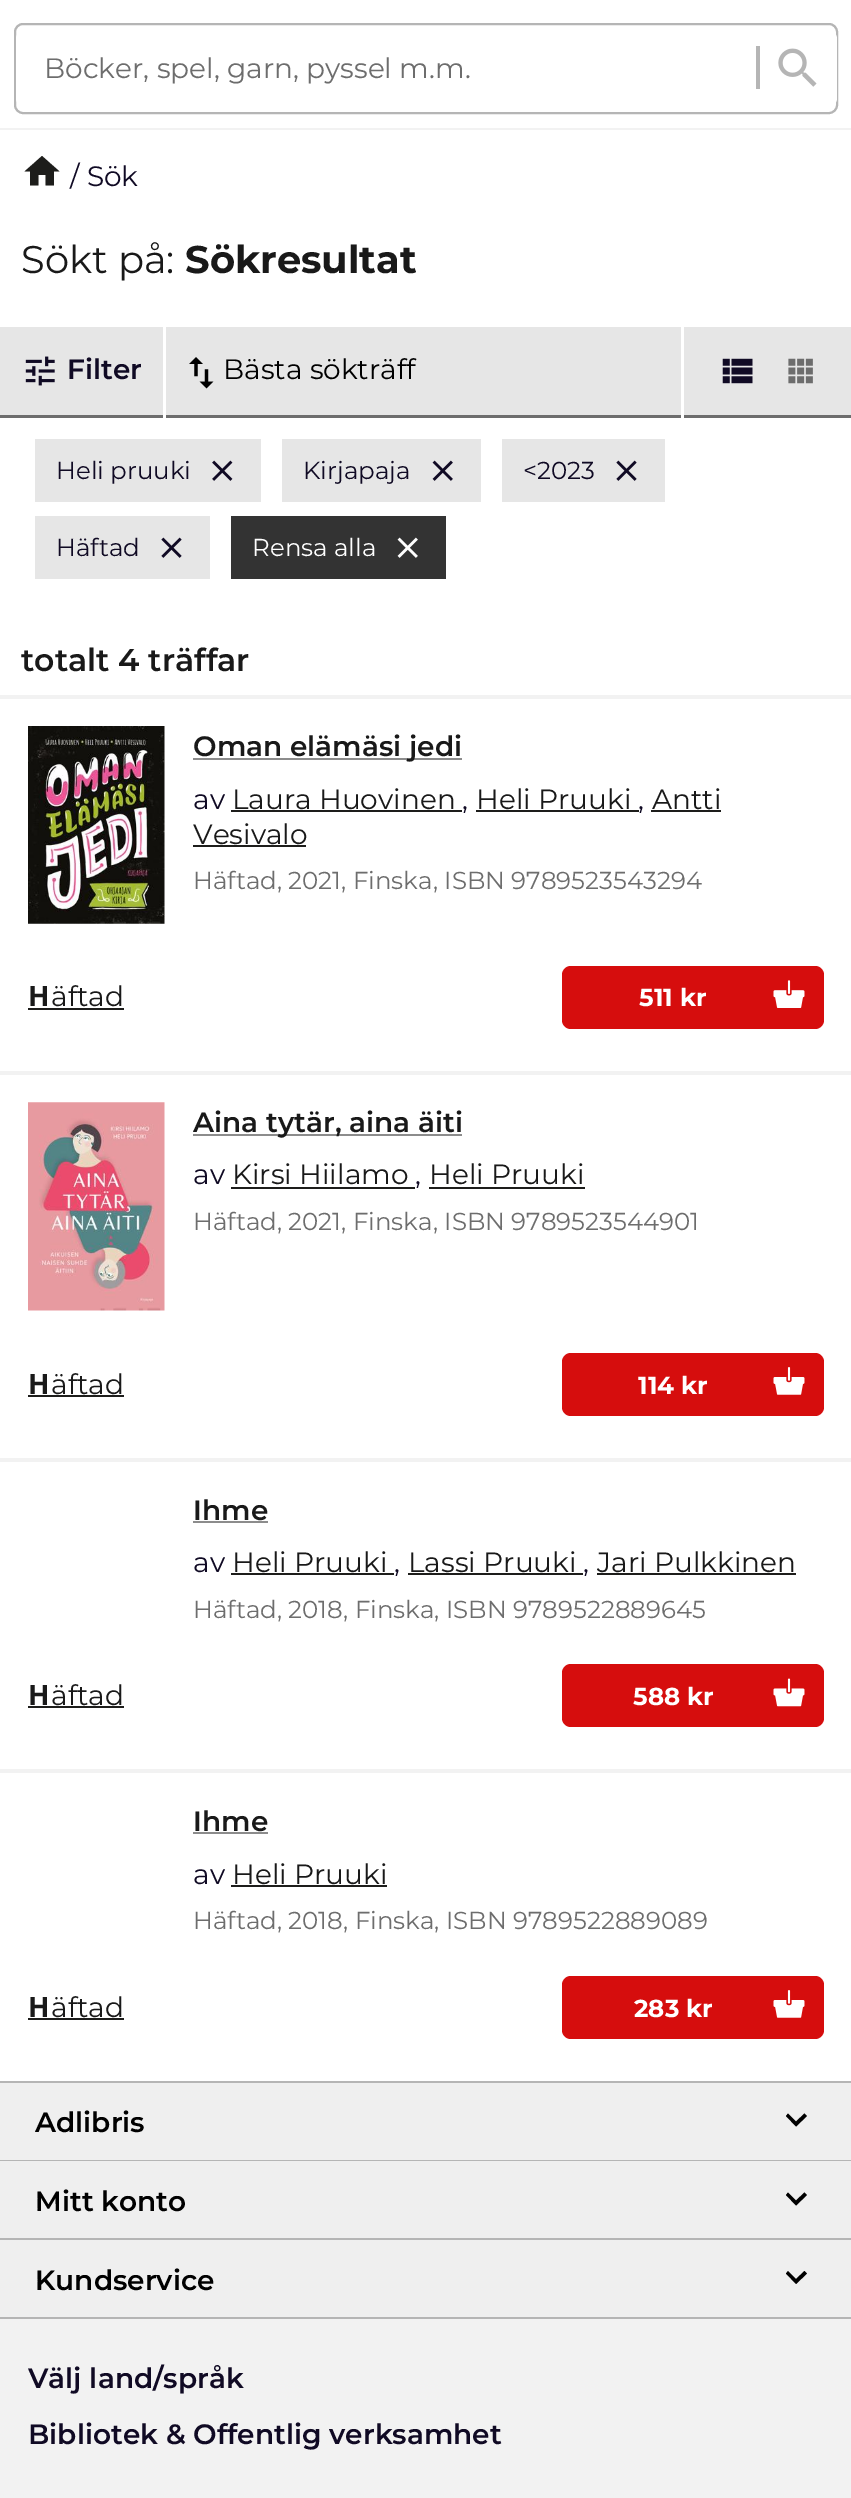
%!PS
<< /PageSize [851 2498] >> setpagedevice
/rgb { 3 { 255 div 3 1 roll } repeat setrgbcolor } def
/font { [ exch dup neg 0 0 3 -1 roll 0 0 ] selectfont } def
/text { moveto show } def
/roundrect { 5 dict begin { /r /h /w /y /x } { exch def } forall
  x r add y moveto x w add y 2 copy h add r arct x w add y h add x 1 index r arct
  x y h add x y r arct x y 2 copy exch w add exch r arct closepath end } def
/picture { 5 dict begin { /h /w /y /x /name } { exch def } forall
  gsave x y translate w h scale
  w h 8 [w 0 0 h 0 0] name (r) file false 3 colorimage grestore end } def
0 2498 translate 1 -1 scale
4 setmiterlimit
255 255 255 rgb
0 0 851 2498 rectfill
242 242 242 rgb
0 128 851 2 rectfill
181 181 181 rgb
2 setlinewidth
15 24 822 89 8 roundrect stroke
255 255 255 rgb
16 30 821 77 9 roundrect fill
181 181 181 rgb
756 46 4 43 rectfill
(img_01.rgb) 778 48 39 39 picture
29 29 27 rgb
38.5 185.5 moveto -8.5 0 rlineto 0 -14 rlineto -5.5 0 rlineto 17.5 -15.5 rlineto 17.5 15.5 rlineto -5.5 0 rlineto 0 14 rlineto -8.5 0 rlineto 0 -10.5 rlineto -7 0 rlineto closepath fill
109 109 109 rgb
0 415 moveto 0 3 rlineto 163 0 rlineto 0 -87 rlineto 0 84 rlineto closepath fill
230 230 230 rgb
0 327 163 88 rectfill
(img_02.rgb) 25 356 30 30 picture
109 109 109 rgb
166 331 moveto 0 87 rlineto 515 0 rlineto 0 -87 rlineto 0 84 rlineto -515 0 rlineto closepath fill
230 230 230 rgb
166 327 515 88 rectfill
(img_03.rgb) 189 357 25 32 picture
109 109 109 rgb
684 331 moveto 0 87 rlineto 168 0 rlineto 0 -3 rlineto -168 0 rlineto closepath fill
230 230 230 rgb
684 327 167 88 rectfill
(img_04.rgb) 722 358 31 26 picture
(img_05.rgb) 788 358 25 26 picture
35 439 226 63 rectfill
(img_06.rgb) 212 460 21 21 picture
282 439 199 63 rectfill
(img_07.rgb) 432 460 21 21 picture
502 439 163 63 rectfill
(img_08.rgb) 616 460 21 21 picture
35 516 175 63 rectfill
(img_08.rgb) 161 537 21 21 picture
51 51 51 rgb
231 516 215 63 rectfill
(img_09.rgb) 397 537 21 21 picture
242 242 242 rgb
0 695 851 4 rectfill
(img_10.rgb) 28 726 137 198 picture
140 140 140 rgb
193 758 269 2 rectfill
29 29 27 rgb
231 810 231 2 rectfill
476 810 163 2 rectfill
651 810 70 2 rectfill
193 845 113 2 rectfill
28 1008 96 2 rectfill
214 13 13 rgb
562 966 262 63 9 roundrect fill
(img_11.rgb) 773 980 32 28 picture
242 242 242 rgb
0 1071 851 4 rectfill
(img_12.rgb) 28 1102 137 209 picture
140 140 140 rgb
193 1134 269 2 rectfill
29 29 27 rgb
231 1187 184 2 rectfill
429 1187 156 2 rectfill
28 1395 96 2 rectfill
214 13 13 rgb
562 1353 262 63 9 roundrect fill
(img_13.rgb) 773 1367 32 28 picture
242 242 242 rgb
0 1458 851 4 rectfill
140 140 140 rgb
193 1521 75 2 rectfill
29 29 27 rgb
231 1573 163 2 rectfill
408 1573 175 2 rectfill
597 1573 199 2 rectfill
28 1706 96 2 rectfill
214 13 13 rgb
562 1664 262 63 9 roundrect fill
(img_14.rgb) 773 1678 32 29 picture
242 242 242 rgb
0 1769 851 4 rectfill
140 140 140 rgb
193 1832 75 2 rectfill
29 29 27 rgb
231 1885 156 2 rectfill
28 2018 96 2 rectfill
214 13 13 rgb
562 1976 262 63 9 roundrect fill
(img_13.rgb) 773 1990 32 28 picture
242 242 242 rgb
0 2319 851 179 rectfill
181 181 181 rgb
0 2081 851 2 rectfill
0 2160 851 1 rectfill
239 239 239 rgb
0 2083 851 77 rectfill
0 0 0 rgb
788 2113.5 moveto 8 8 rlineto 8.5 -8 rlineto 2.5 2.5 rlineto -11 10.5 rlineto -10 -10.5 rlineto closepath fill
181 181 181 rgb
0 2238 851 2 rectfill
239 239 239 rgb
0 2161 851 77 rectfill
0 0 0 rgb
788 2192.5 moveto 8 8 rlineto 8.5 -8 rlineto 2.5 2.5 rlineto -11 10.5 rlineto -10 -10.5 rlineto closepath fill
181 181 181 rgb
0 2317 851 2 rectfill
239 239 239 rgb
0 2240 851 77 rectfill
0 0 0 rgb
788 2271 moveto 8 8 rlineto 8.5 -8 rlineto 2.5 2.5 rlineto -11 10.5 rlineto -10 -10.5 rlineto closepath fill
/Montserrat-Regular 28 font
109 109 109 rgb
(Böcker, spel, garn, pyssel m.m.) 44 78 text
16 10 36 rgb
(/ Sök) 70 186 text
/Montserrat-Regular 38.5 font
25 25 25 rgb
(Sökt på:) 21 273 text
/Montserrat-Bold 38.5 font
(Sökresultat) 185 273 text
/Montserrat-SemiBold 28 font
16 10 36 rgb
(Filter) 67 379 text
/Montserrat-Regular 28 font
0 0 0 rgb
(Bästa sökträff) 223 379 text
/Montserrat-Regular 24.5 font
16 10 36 rgb
(Heli pruuki) 56 479 text
(Kirjapaja) 303 479 text
(<2023) 523 479 text
(Häftad) 56 556 text
255 255 255 rgb
(Rensa alla) 252 556 text
/Montserrat-SemiBold 31.5 font
25 25 25 rgb
(totalt 4 träffar) 21 671 text
/Montserrat-SemiBold 28 font
(Oman elämäsi jedi) 193 756 text
/Montserrat-Regular 28 font
16 10 36 rgb
(av) 193 809 text
25 25 25 rgb
(Laura Huovinen) 232 809 text
16 10 36 rgb
(,) 462 809 text
25 25 25 rgb
(Heli Pruuki) 476 809 text
16 10 36 rgb
(,) 638 809 text
25 25 25 rgb
(Antti) 652 809 text
(Vesivalo) 193 844 text
/Montserrat-Regular 24.5 font
109 109 109 rgb
(Häftad, 2021, Finska, ISBN 9789523543294) 193 889 text
/NotoSans-Bold 28 font
25 25 25 rgb
(H) 28 1006 text
/Montserrat-Regular 28 font
(äftad) 51 1006 text
/Montserrat-Bold 24.5 font
255 255 255 rgb
(511 kr) 639 1006 text
/Montserrat-SemiBold 28 font
25 25 25 rgb
(Aina tytär, aina äiti) 193 1132 text
/Montserrat-Regular 28 font
16 10 36 rgb
(av) 193 1184 text
25 25 25 rgb
(Kirsi Hiilamo) 232 1184 text
16 10 36 rgb
(,) 415 1184 text
25 25 25 rgb
(Heli Pruuki) 429 1184 text
/Montserrat-Regular 24.5 font
109 109 109 rgb
(Häftad, 2021, Finska, ISBN 9789523544901) 193 1230 text
/NotoSans-Bold 28 font
25 25 25 rgb
(H) 28 1394 text
/Montserrat-Regular 28 font
(äftad) 51 1394 text
/Montserrat-Bold 24.5 font
255 255 255 rgb
(114 kr) 638 1394 text
/Montserrat-SemiBold 28 font
25 25 25 rgb
(Ihme) 193 1520 text
/Montserrat-Regular 28 font
16 10 36 rgb
(av) 193 1572 text
25 25 25 rgb
(Heli Pruuki) 232 1572 text
16 10 36 rgb
(,) 394 1572 text
25 25 25 rgb
(Lassi Pruuki) 408 1572 text
16 10 36 rgb
(,) 583 1572 text
25 25 25 rgb
(Jari Pulkkinen) 597 1572 text
/Montserrat-Regular 24.5 font
109 109 109 rgb
(Häftad, 2018, Finska, ISBN 9789522889645) 193 1618 text
/NotoSans-Bold 28 font
25 25 25 rgb
(H) 28 1705 text
/Montserrat-Regular 28 font
(äftad) 51 1705 text
/Montserrat-Bold 24.5 font
255 255 255 rgb
(588 kr) 633 1705 text
/Montserrat-SemiBold 28 font
25 25 25 rgb
(Ihme) 193 1831 text
/Montserrat-Regular 28 font
16 10 36 rgb
(av) 193 1884 text
25 25 25 rgb
(Heli Pruuki) 232 1884 text
/Montserrat-Regular 24.5 font
109 109 109 rgb
(Häftad, 2018, Finska, ISBN 9789522889089) 193 1929 text
/NotoSans-Bold 28 font
25 25 25 rgb
(H) 28 2017 text
/Montserrat-Regular 28 font
(äftad) 51 2017 text
/Montserrat-Bold 24.5 font
255 255 255 rgb
(283 kr) 634 2017 text
/Montserrat-SemiBold 28 font
0 0 0 rgb
(Adlibris) 35 2132 text
(Mitt konto) 35 2211 text
(Kundservice) 35 2290 text
16 10 36 rgb
(Välj land/språk) 28 2388 text
(Bibliotek & Offentlig verksamhet) 28 2444 text
showpage
